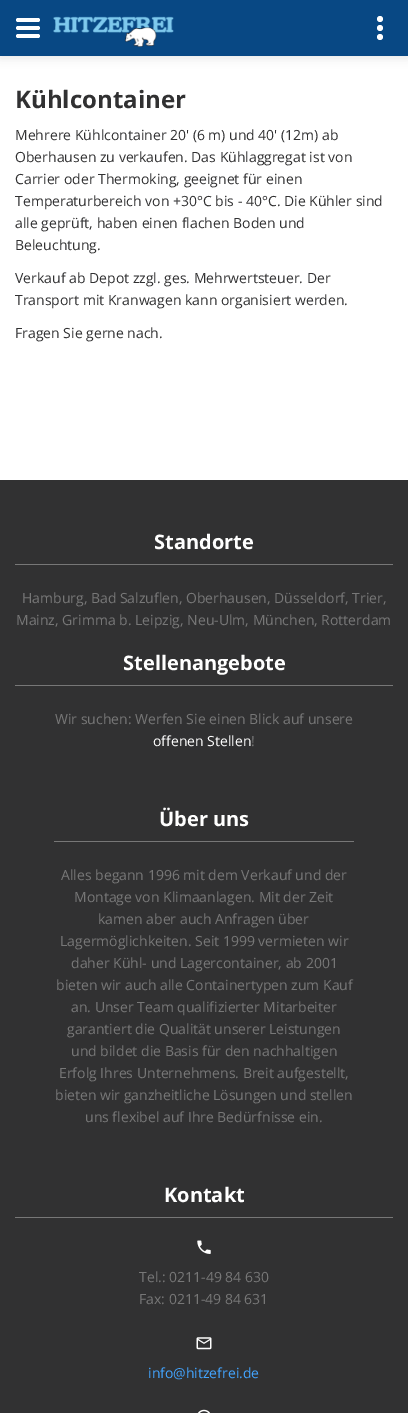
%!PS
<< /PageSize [408 1413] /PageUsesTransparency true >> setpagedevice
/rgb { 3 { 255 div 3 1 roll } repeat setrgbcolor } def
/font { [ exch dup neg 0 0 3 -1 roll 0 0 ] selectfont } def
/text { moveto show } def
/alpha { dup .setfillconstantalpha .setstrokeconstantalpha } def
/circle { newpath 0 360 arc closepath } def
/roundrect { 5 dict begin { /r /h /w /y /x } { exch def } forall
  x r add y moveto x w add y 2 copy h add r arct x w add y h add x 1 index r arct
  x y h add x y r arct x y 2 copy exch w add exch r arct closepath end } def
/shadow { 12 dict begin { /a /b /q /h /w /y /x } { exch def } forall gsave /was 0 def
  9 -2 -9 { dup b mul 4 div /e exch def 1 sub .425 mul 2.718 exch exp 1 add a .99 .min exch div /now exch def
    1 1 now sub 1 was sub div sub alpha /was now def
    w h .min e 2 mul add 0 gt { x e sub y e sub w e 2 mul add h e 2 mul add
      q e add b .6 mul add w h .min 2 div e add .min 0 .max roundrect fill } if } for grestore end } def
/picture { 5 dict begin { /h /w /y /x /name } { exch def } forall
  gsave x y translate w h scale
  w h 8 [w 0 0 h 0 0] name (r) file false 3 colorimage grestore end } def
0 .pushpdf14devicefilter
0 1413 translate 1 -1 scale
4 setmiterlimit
255 255 255 rgb
0 0 408 1413 rectfill
49 49 50 rgb
0 2 408 56 0 5 0.13 shadow
8 72 132 rgb
0 0 408 56 rectfill
255 255 255 rgb
38 30 moveto -20 0 rlineto -1 0 -2 -1 -2 -2 rcurveto 0 -1 1 -2 2 -2 rcurveto 20 0 rlineto 1 0 2 1 2 2 rcurveto 0 1 -1 2 -2 2 rcurveto closepath 38 38 moveto -20 0 rlineto -1 0 -2 -1 -2 -2 rcurveto 0 -1 1 -2 2 -2 rcurveto 20 0 rlineto 1 0 2 1 2 2 rcurveto 0 1 -1 2 -2 2 rcurveto closepath 38 22 moveto -20 0 rlineto -1 0 -2 -1 -2 -2 rcurveto 0 -1 1 -2 2 -2 rcurveto 20 0 rlineto 1 0 2 1 2 2 rcurveto 0 1 -1 2 -2 2 rcurveto closepath fill
(img_01.rgb) 53 16 121 31 picture
380 28 3 circle fill
380 19 3 circle fill
380 37 3 circle fill
49 49 50 rgb
0 480 408 933 rectfill
119 119 119 rgb
15 564 378 1 rectfill
15 685 378 1 rectfill
54 841 300 1 rectfill
15 1217 378 1 rectfill
(img_02.rgb) 197 1240 14 14 picture
(img_03.rgb) 196 1337 16 13 picture
(img_04.rgb) 197 1409 13 4 picture
/OpenSans-Bold 24 font
49 49 50 rgb
(Kühlcontainer) 15 108 text
/OpenSans-Regular 14 font
(Mehrere Kühlcontainer 20' \(6 m\) und 40' \(12m\) ab) 15 140 text
(Oberhausen zu verkaufen. Das Kühlaggregat ist von) 15 162 text
(Carrier oder Thermoking, geeignet für einen) 15 184 text
(Temperaturbereich von +30°C bis - 40°C. Die Kühler sind) 15 206 text
(alle geprüft, haben einen flachen Boden und) 15 228 text
(Beleuchtung.) 15 250 text
(Verkauf ab Depot zzgl. ges. Mehrwertsteuer. Der) 15 283 text
(Transport mit Kranwagen kann organisiert werden.) 15 305 text
(Fragen Sie gerne nach.) 15 338 text
/OpenSans-Bold 20 font
255 255 255 rgb
(Standorte) 154 549 text
/OpenSans-Regular 14 font
119 119 119 rgb
(Hamburg, Bad Salzuflen, Oberhausen, Düsseldorf, Trier,) 22 603 text
(Mainz, Grimma b. Leipzig, Neu-Ulm, München, Rotterdam) 16 625 text
/OpenSans-Bold 20 font
255 255 255 rgb
(Stellenangebote) 123 670 text
/OpenSans-Regular 14 font
119 119 119 rgb
(Wir suchen: Werfen Sie einen Blick auf unsere) 55 724 text
255 255 255 rgb
(offenen Stellen) 153 746 text
119 119 119 rgb
(!) 251 746 text
/OpenSans-Bold 20 font
255 255 255 rgb
(Über uns) 159 826 text
/OpenSans-Regular 14 font
119 119 119 rgb
(Alles begann 1996 mit dem Verkauf und der) 61 880 text
(Montage von Klimaanlagen. Mit der Zeit) 74 902 text
(kamen aber auch Anfragen über) 98 924 text
(Lagermöglichkeiten. Seit 1999 vermieten wir) 60 946 text
(daher Kühl- und Lagercontainer, ab 2001) 71 968 text
(bieten wir auch alle Containertypen zum Kauf) 56 990 text
(an. Unser Team qualifizierter Mitarbeiter) 71 1012 text
(garantiert die Qualität unserer Leistungen) 67 1034 text
(und bildet die Basis für den nachhaltigen) 71 1056 text
(Erfolg Ihres Unternehmens. Breit aufgestellt,) 59 1078 text
(bieten wir ganzheitliche Lösungen und stellen) 55 1100 text
(uns flexibel auf Ihre Bedürfnisse ein.) 85 1122 text
/OpenSans-Bold 20 font
255 255 255 rgb
(Kontakt) 164 1202 text
/OpenSans-Regular 14 font
119 119 119 rgb
(Tel.: 0211-49 84 630) 139 1282 text
(Fax: 0211-49 84 631) 139 1304 text
66 164 255 rgb
(info@hitzefrei.de) 148 1378 text
.poppdf14devicefilter showpage
